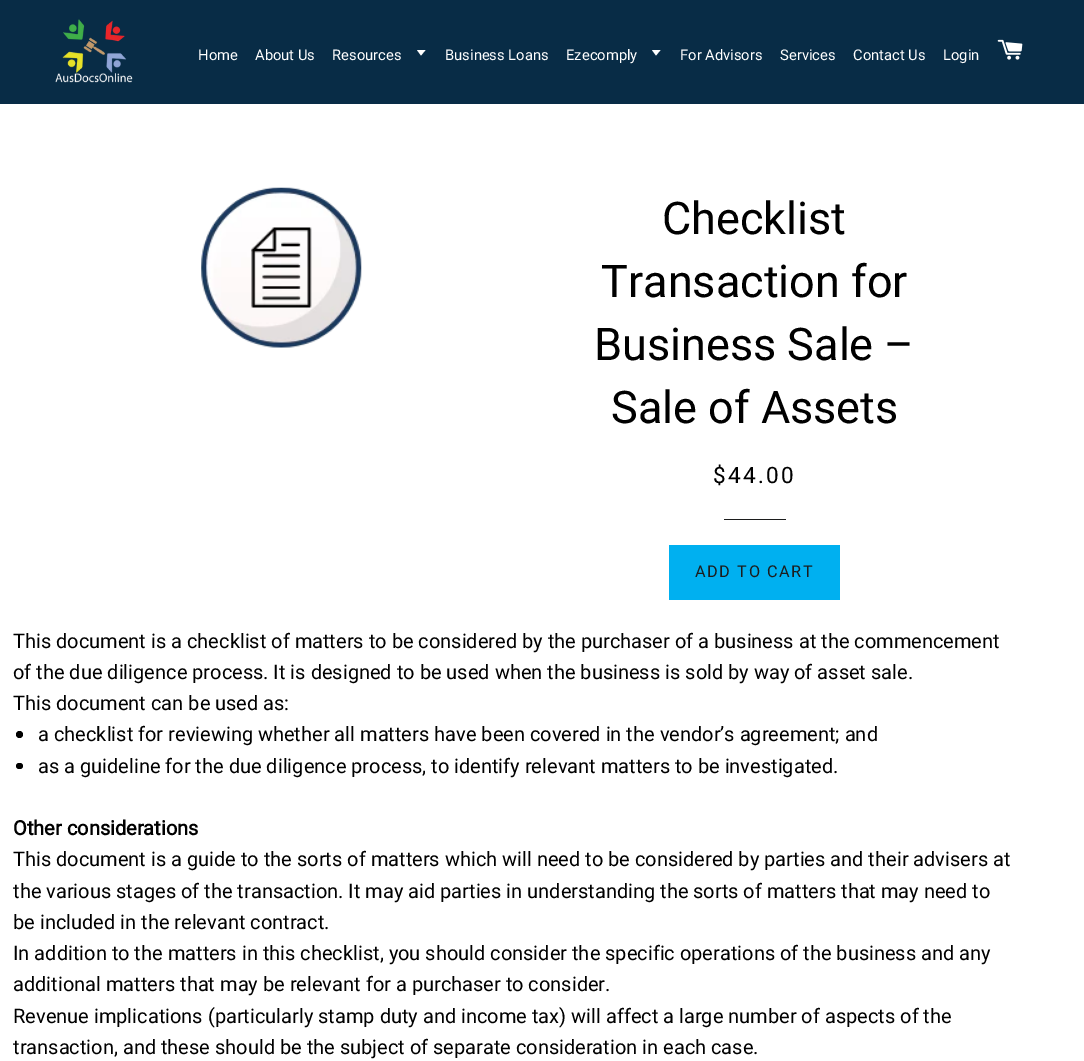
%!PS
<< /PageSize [1084 1061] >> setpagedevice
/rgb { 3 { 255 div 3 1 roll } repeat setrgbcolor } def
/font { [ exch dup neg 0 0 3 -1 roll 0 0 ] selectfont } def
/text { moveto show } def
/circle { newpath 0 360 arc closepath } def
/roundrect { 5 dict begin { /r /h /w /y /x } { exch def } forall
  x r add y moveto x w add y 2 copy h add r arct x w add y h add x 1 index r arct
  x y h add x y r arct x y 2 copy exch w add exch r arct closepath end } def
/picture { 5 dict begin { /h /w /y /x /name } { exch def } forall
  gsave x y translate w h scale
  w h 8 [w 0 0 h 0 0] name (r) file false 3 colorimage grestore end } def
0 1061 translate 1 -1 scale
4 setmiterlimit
255 255 255 rgb
0 0 1084 1061 rectfill
8 44 70 rgb
0 0 1084 104 rectfill
(img_01.rgb) 55 19 78 64 picture
255 255 255 rgb
417 50 moveto 4 5.5 rlineto 4.5 -5.5 rlineto closepath fill
652 50 moveto 4 5.5 rlineto 4.5 -5.5 rlineto closepath fill
(img_02.rgb) 997 39 26 21 picture
(img_03.rgb) 201 187 161 161 picture
28 29 29 rgb
724 519 62 1 rectfill
0 176 240 rgb
669 545 171 55 rectfill
0 0 0 rgb
19.5 734.5 3.5 circle fill
16 763 7 6 3 roundrect fill
/Roboto-Regular 14.75 font
255 255 255 rgb
(Home) 198 60 text
(About Us) 255 60 text
(Resources) 332 60 text
(Business Loans) 445 60 text
(Ezecomply) 566 60 text
(For Advisors) 680 60 text
(Services) 780 60 text
(Contact Us) 853 60 text
(Login) 943 60 text
/Roboto-Regular 45 font
0 0 0 rgb
(Checklist) 662 234 text
(Transaction for) 601 297 text
(Business Sale –) 594 360 text
(Sale of Assets) 611 423 text
/Roboto-Regular 22.5 font
713 483 moveto 2.25 0 ($44.00) ashow
/Roboto-Regular 16.25 font
28 29 29 rgb
695 577 moveto 1.6 0 (ADD TO CART) ashow
/Roboto-Regular 20 font
0 0 0 rgb
(This document is a checklist of matters to be considered by the purchaser of a business at the commencement) 13 648 text
(of the due diligence process. It is designed to be used when the business is sold by way of asset sale.) 13 679 text
(This document can be used as:) 13 710 text
(a checklist for reviewing whether all matters have been covered in the vendor’s agreement; and) 38 741 text
(as a guideline for the due diligence process, to identify relevant matters to be investigated.) 38 773 text
/Roboto-Bold 20 font
(Other considerations) 13 835 text
/Roboto-Regular 20 font
(This document is a guide to the sorts of matters which will need to be considered by parties and their advisers at) 13 866 text
(the various stages of the transaction. It may aid parties in understanding the sorts of matters that may need to) 13 898 text
(be included in the relevant contract.) 13 929 text
(In addition to the matters in this checklist, you should consider the specific operations of the business and any) 13 960 text
(additional matters that may be relevant for a purchaser to consider.) 13 991 text
(Revenue implications \(particularly stamp duty and income tax\) will affect a large number of aspects of the) 13 1023 text
(transaction, and these should be the subject of separate consideration in each case.) 13 1054 text
showpage
